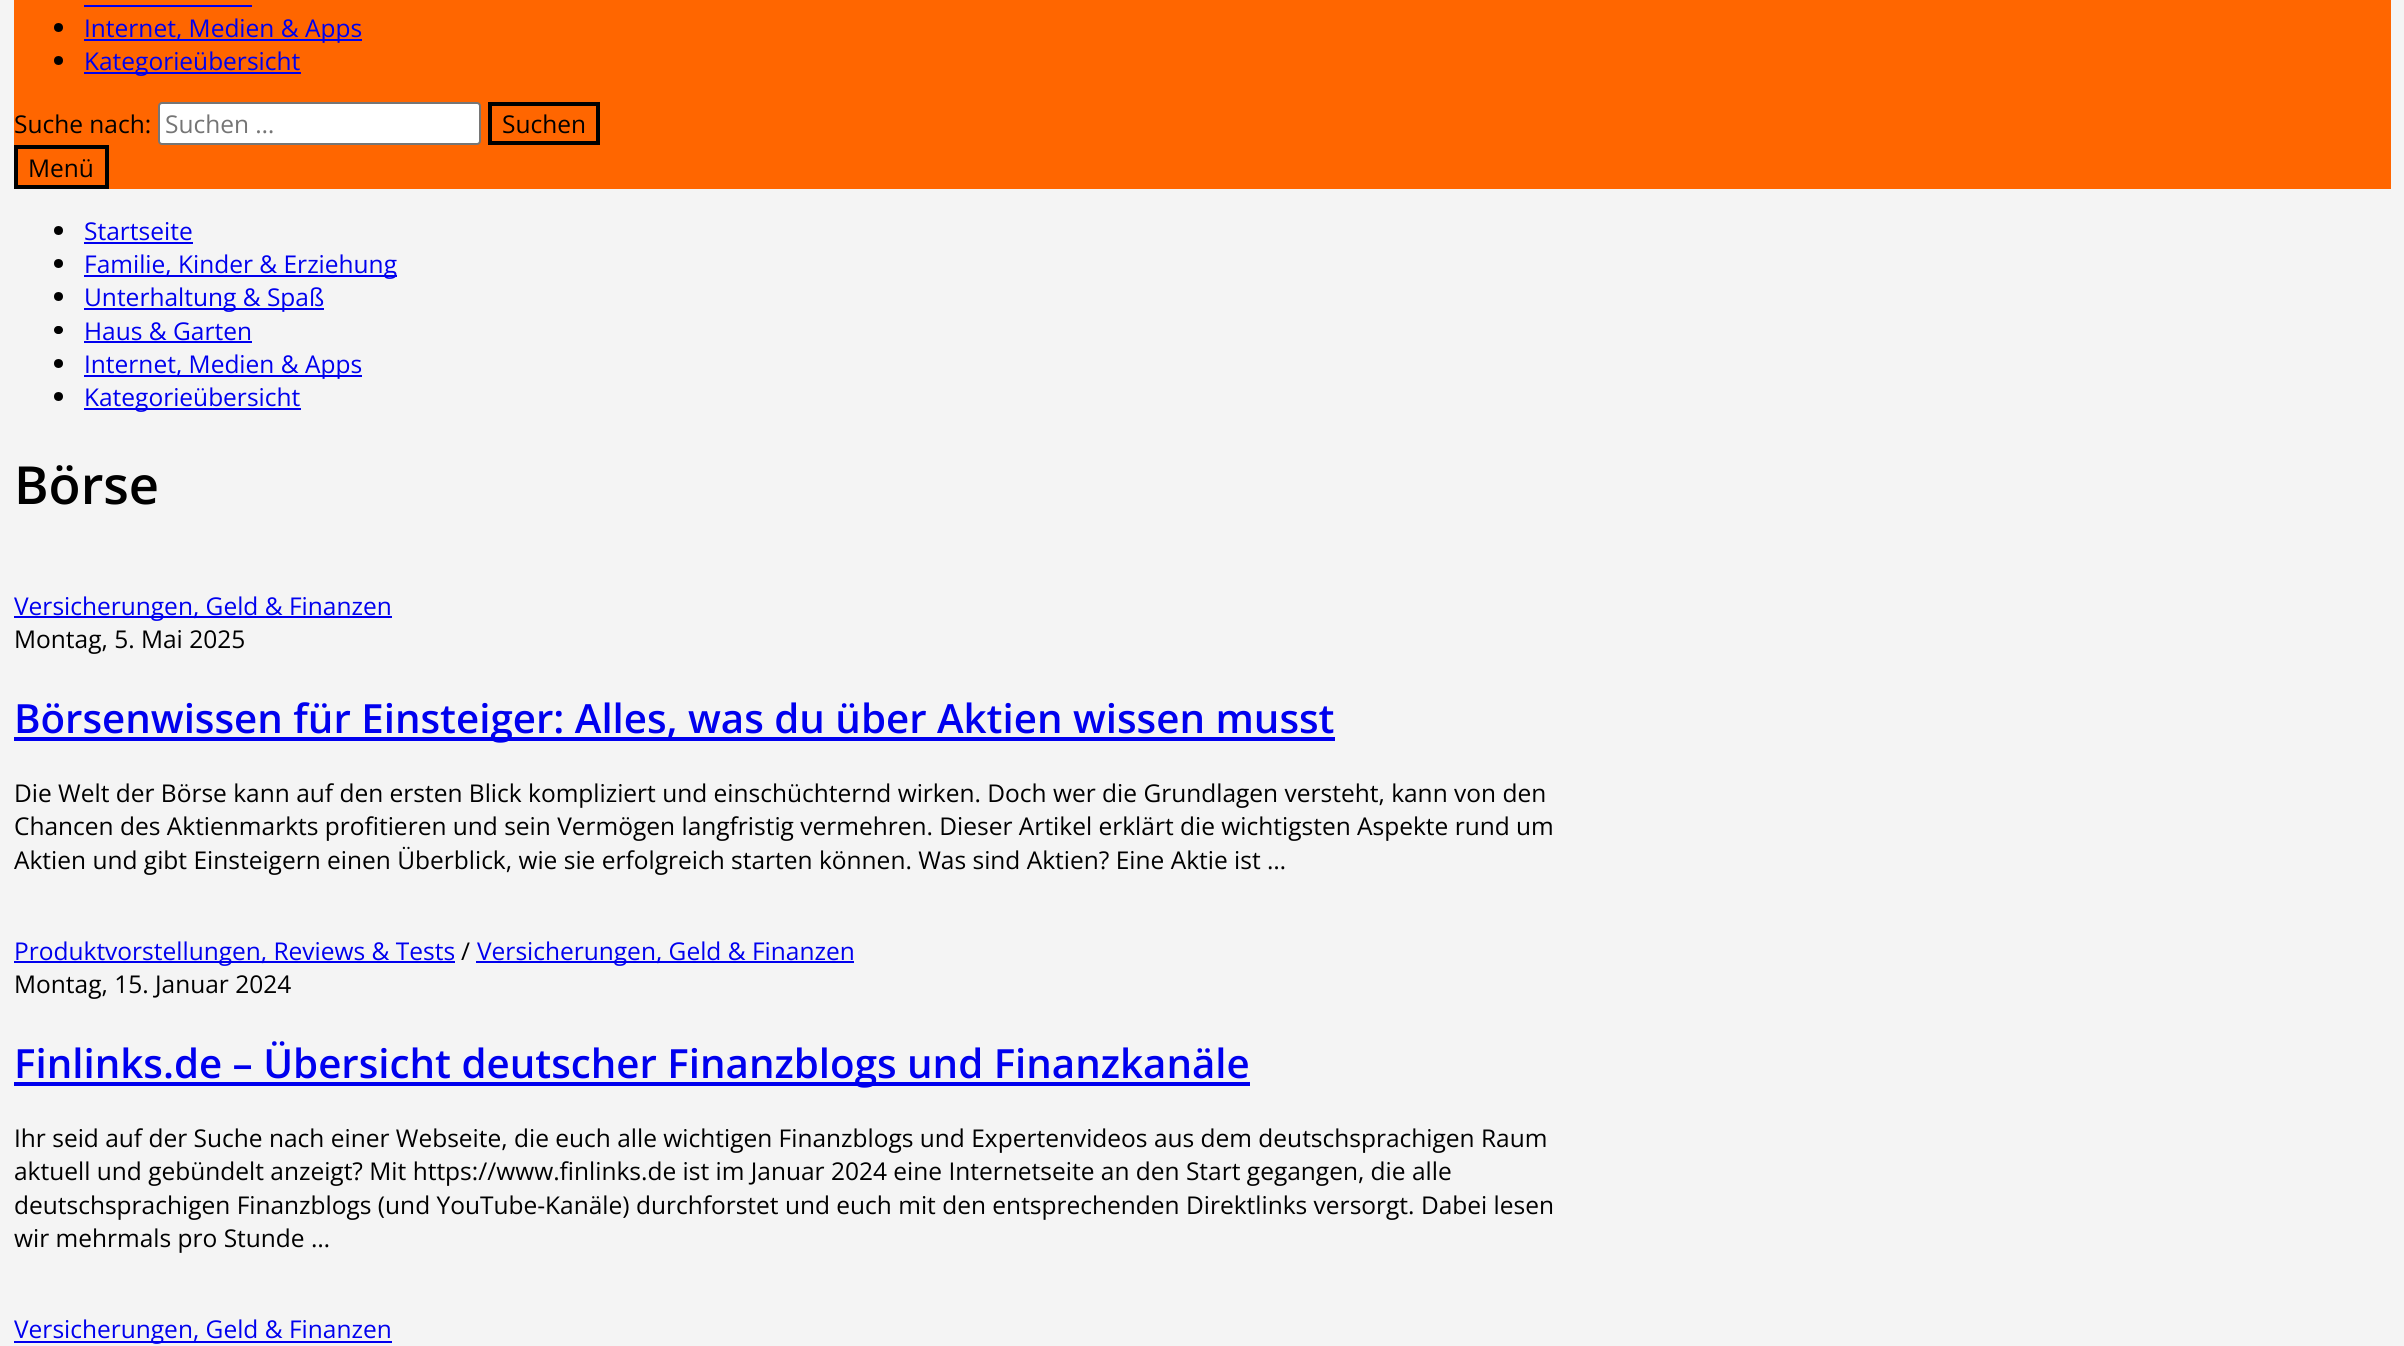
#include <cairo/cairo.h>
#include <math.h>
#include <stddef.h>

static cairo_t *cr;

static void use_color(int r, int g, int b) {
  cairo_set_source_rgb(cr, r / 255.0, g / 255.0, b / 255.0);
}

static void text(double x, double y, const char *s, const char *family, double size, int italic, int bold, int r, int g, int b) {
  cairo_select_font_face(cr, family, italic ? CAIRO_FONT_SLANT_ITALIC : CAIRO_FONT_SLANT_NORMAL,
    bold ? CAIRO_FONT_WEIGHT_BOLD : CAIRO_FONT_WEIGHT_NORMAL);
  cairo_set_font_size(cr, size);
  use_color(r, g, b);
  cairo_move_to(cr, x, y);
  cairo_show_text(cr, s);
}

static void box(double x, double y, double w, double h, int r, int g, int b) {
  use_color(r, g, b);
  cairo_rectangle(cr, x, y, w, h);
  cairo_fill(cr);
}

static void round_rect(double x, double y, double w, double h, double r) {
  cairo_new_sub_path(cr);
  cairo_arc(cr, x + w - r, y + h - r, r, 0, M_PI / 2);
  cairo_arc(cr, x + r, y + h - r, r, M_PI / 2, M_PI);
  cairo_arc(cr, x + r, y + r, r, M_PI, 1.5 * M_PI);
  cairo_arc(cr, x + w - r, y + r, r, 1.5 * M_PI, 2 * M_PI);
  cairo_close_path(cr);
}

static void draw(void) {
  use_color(244, 244, 244);
  cairo_paint(cr);
  box(14, 0, 2377, 189, 255, 102, 0);
  box(84, 5, 168, 2, 0, 0, 238);
  use_color(0, 0, 0);
  cairo_arc(cr, 58.5, 27.5, 4.5, 0, 2 * M_PI);
  cairo_fill(cr);
  box(84, 39, 278, 2, 0, 0, 238);
  use_color(0, 0, 0);
  cairo_arc(cr, 58.5, 60.5, 4.5, 0, 2 * M_PI);
  cairo_fill(cr);
  box(84, 72, 217, 2, 0, 0, 238);
  use_color(255, 255, 255);
  round_rect(159, 103, 321, 41, 3);
  cairo_fill_preserve(cr);
  use_color(118, 118, 118);
  cairo_stroke(cr);
  cairo_rectangle(cr, 490, 104, 108, 39);
  use_color(0, 0, 0);
  cairo_set_line_width(cr, 4);
  cairo_stroke(cr);
  cairo_rectangle(cr, 16, 147, 91, 40);
  cairo_stroke(cr);
  cairo_arc(cr, 58.5, 230.5, 4.5, 0, 2 * M_PI);
  cairo_fill(cr);
  box(84, 242, 109, 2, 0, 0, 238);
  use_color(0, 0, 0);
  cairo_arc(cr, 58.5, 263.5, 4.5, 0, 2 * M_PI);
  cairo_fill(cr);
  box(84, 275, 313, 2, 0, 0, 238);
  use_color(0, 0, 0);
  cairo_arc(cr, 58.5, 296.5, 4.5, 0, 2 * M_PI);
  cairo_fill(cr);
  box(84, 308, 240, 2, 0, 0, 238);
  use_color(0, 0, 0);
  round_rect(54, 326, 9, 8, 4);
  cairo_fill(cr);
  box(84, 341, 168, 2, 0, 0, 238);
  use_color(0, 0, 0);
  cairo_arc(cr, 58.5, 363.5, 4.5, 0, 2 * M_PI);
  cairo_fill(cr);
  box(84, 375, 278, 2, 0, 0, 238);
  use_color(0, 0, 0);
  cairo_arc(cr, 58.5, 396.5, 4.5, 0, 2 * M_PI);
  cairo_fill(cr);
  box(84, 408, 217, 2, 0, 0, 238);
  box(14, 616, 378, 2, 0, 0, 238);
  box(14, 737, 1321, 4, 0, 0, 238);
  box(14, 961, 441, 2, 0, 0, 238);
  box(476, 961, 378, 2, 0, 0, 238);
  box(14, 1082, 1236, 4, 0, 0, 238);
  box(14, 1341, 378, 2, 0, 0, 238);
  text(84, 37, "Internet, Medien & Apps", "Open Sans", 24.5, 0, 0, 0, 0, 238);
  text(84, 70, "Kategorieübersicht", "Open Sans", 24.5, 0, 0, 0, 0, 238);
  text(14, 133, "Suche nach:", "Open Sans", 24.5, 0, 0, 0, 0, 0);
  text(165, 133, "Suchen …", "Open Sans", 24.5, 0, 0, 117, 117, 117);
  text(502, 133, "Suchen", "Open Sans", 24.5, 0, 0, 0, 0, 0);
  text(28, 177, "Menü", "Open Sans", 24.5, 0, 0, 0, 0, 0);
  text(84, 240, "Startseite", "Open Sans", 24.5, 0, 0, 0, 0, 238);
  text(84, 273, "Familie, Kinder & Erziehung", "Open Sans", 24.5, 0, 0, 0, 0, 238);
  text(84, 306, "Unterhaltung & Spaß", "Open Sans", 24.5, 0, 0, 0, 0, 238);
  text(84, 340, "Haus & Garten", "Open Sans", 24.5, 0, 0, 0, 0, 238);
  text(84, 373, "Internet, Medien & Apps", "Open Sans", 24.5, 0, 0, 0, 0, 238);
  text(84, 406, "Kategorieübersicht", "Open Sans", 24.5, 0, 0, 0, 0, 238);
  text(14, 504, "Börse", "Open Sans SemiBold", 52.5, 0, 0, 0, 0, 0);
  text(14, 615, "Versicherungen, Geld & Finanzen", "Open Sans", 24.5, 0, 0, 0, 0, 238);
  text(14, 648, "Montag, 5. Mai 2025", "Open Sans", 24.5, 0, 0, 0, 0, 0);
  text(14, 733, "Börsenwissen für Einsteiger: Alles, was du über Aktien wissen musst", "Open Sans SemiBold", 40.25, 0, 0, 0, 0, 238);
  text(14, 802, "Die Welt der Börse kann auf den ersten Blick kompliziert und einschüchternd wirken. Doch wer die Grundlagen versteht, kann von den", "Open Sans", 24.5, 0, 0, 0, 0, 0);
  text(14, 835, "Chancen des Aktienmarkts profitieren und sein Vermögen langfristig vermehren. Dieser Artikel erklärt die wichtigsten Aspekte rund um", "Open Sans", 24.5, 0, 0, 0, 0, 0);
  text(14, 869, "Aktien und gibt Einsteigern einen Überblick, wie sie erfolgreich starten können. Was sind Aktien? Eine Aktie ist …", "Open Sans", 24.5, 0, 0, 0, 0, 0);
  text(14, 960, "Produktvorstellungen, Reviews & Tests", "Open Sans", 24.5, 0, 0, 0, 0, 238);
  text(461, 960, "/", "Open Sans", 24.5, 0, 0, 0, 0, 0);
  text(477, 960, "Versicherungen, Geld & Finanzen", "Open Sans", 24.5, 0, 0, 0, 0, 238);
  text(14, 993, "Montag, 15. Januar 2024", "Open Sans", 24.5, 0, 0, 0, 0, 0);
  text(14, 1078, "Finlinks.de – Übersicht deutscher Finanzblogs und Finanzkanäle", "Open Sans SemiBold", 40.25, 0, 0, 0, 0, 238);
  text(14, 1147, "Ihr seid auf der Suche nach einer Webseite, die euch alle wichtigen Finanzblogs und Expertenvideos aus dem deutschsprachigen Raum", "Open Sans", 24.5, 0, 0, 0, 0, 0);
  text(14, 1180, "aktuell und gebündelt anzeigt? Mit https://www.finlinks.de ist im Januar 2024 eine Internetseite an den Start gegangen, die alle", "Open Sans", 24.5, 0, 0, 0, 0, 0);
  text(14, 1214, "deutschsprachigen Finanzblogs (und YouTube-Kanäle) durchforstet und euch mit den entsprechenden Direktlinks versorgt. Dabei lesen", "Open Sans", 24.5, 0, 0, 0, 0, 0);
  text(14, 1247, "wir mehrmals pro Stunde …", "Open Sans", 24.5, 0, 0, 0, 0, 0);
  text(14, 1338, "Versicherungen, Geld & Finanzen", "Open Sans", 24.5, 0, 0, 0, 0, 238);
}

int main(void) {
  cairo_surface_t *surface = cairo_image_surface_create(CAIRO_FORMAT_RGB24, 2404, 1346);
  cr = cairo_create(surface);
  cairo_font_options_t *options = cairo_font_options_create();
  cairo_font_options_set_hint_metrics(options, CAIRO_HINT_METRICS_OFF);
  cairo_font_options_set_hint_style(options, CAIRO_HINT_STYLE_NONE);
  cairo_set_font_options(cr, options);
  cairo_set_miter_limit(cr, 4);
  draw();
  cairo_surface_write_to_png(surface, "out.png");
  cairo_font_options_destroy(options);
  cairo_destroy(cr);
  cairo_surface_destroy(surface);
  return 0;
}
